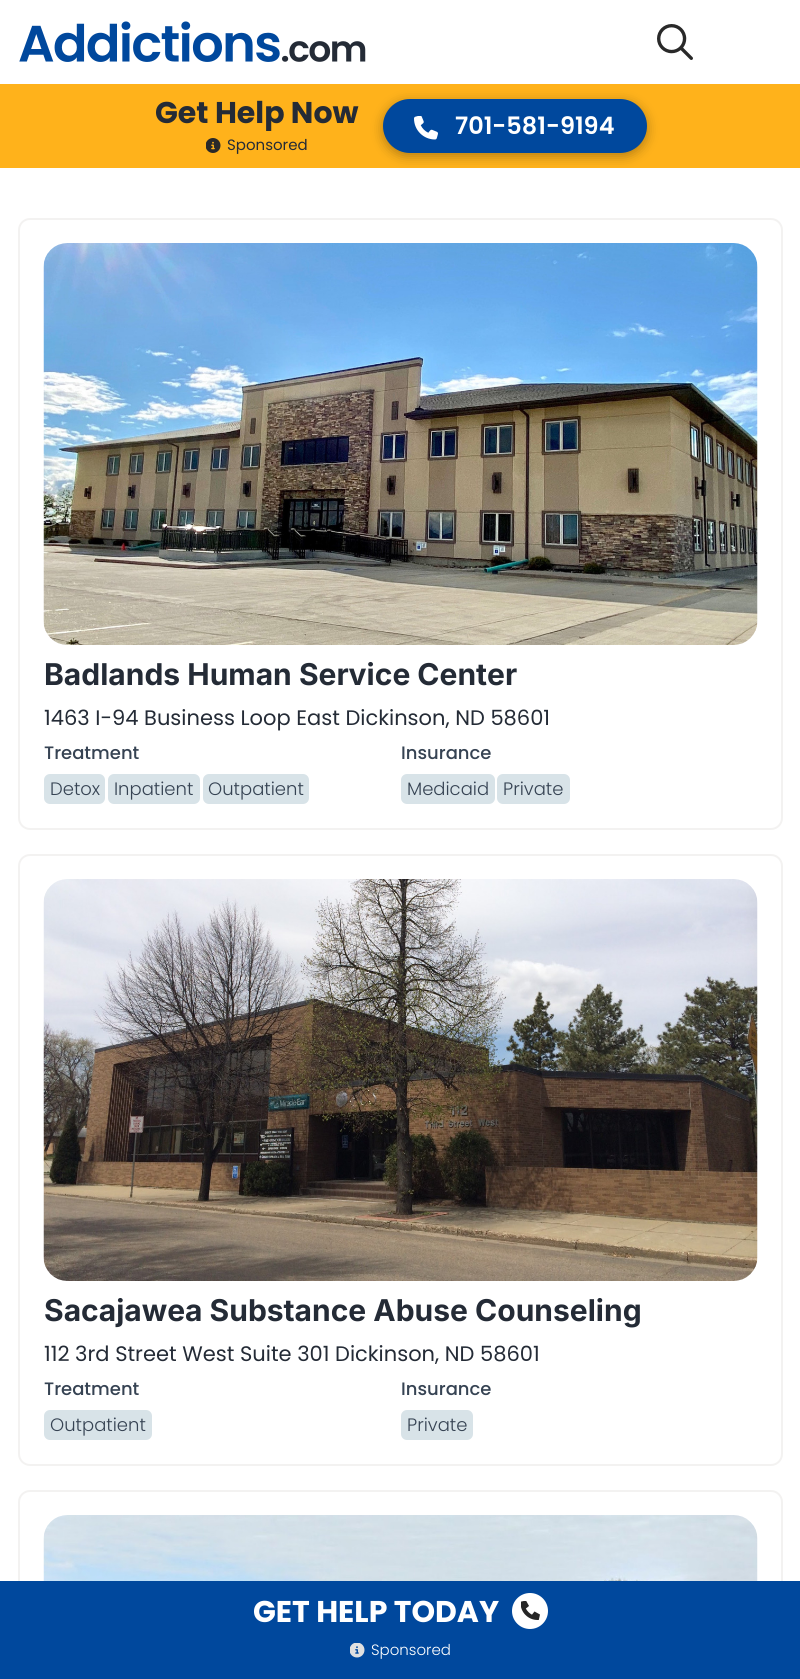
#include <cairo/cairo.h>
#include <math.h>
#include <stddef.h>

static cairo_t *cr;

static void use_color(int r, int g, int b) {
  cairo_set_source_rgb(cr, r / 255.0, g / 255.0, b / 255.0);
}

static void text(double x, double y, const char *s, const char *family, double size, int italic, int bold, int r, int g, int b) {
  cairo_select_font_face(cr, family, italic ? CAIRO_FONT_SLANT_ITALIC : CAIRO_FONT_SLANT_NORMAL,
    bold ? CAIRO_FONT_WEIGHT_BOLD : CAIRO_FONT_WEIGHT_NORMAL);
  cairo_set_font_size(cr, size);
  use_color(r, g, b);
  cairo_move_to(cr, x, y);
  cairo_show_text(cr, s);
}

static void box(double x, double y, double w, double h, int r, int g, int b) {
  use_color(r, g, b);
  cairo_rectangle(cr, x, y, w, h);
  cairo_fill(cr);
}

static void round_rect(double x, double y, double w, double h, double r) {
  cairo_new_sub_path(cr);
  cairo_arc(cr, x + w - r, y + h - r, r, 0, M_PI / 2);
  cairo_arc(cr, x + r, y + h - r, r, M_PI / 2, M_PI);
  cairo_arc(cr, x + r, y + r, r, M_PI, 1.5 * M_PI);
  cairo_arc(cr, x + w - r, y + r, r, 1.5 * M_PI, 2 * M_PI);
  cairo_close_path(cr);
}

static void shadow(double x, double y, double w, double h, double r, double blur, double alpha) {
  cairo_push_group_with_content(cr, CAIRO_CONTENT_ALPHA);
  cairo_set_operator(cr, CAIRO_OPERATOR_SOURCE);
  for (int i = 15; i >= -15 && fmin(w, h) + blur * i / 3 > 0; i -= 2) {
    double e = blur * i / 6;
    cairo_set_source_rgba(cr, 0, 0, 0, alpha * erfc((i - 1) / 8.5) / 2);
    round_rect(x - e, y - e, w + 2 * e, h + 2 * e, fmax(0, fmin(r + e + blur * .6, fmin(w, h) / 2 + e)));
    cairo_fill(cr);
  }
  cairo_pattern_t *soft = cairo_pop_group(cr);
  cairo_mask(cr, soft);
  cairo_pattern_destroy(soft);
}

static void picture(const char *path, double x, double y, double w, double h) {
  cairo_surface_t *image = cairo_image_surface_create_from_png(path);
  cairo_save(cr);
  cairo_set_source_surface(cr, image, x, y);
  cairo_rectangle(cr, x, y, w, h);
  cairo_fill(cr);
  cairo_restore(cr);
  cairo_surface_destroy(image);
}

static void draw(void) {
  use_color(255, 255, 255);
  cairo_paint(cr);
  picture("img_01.png", 19, 21, 347, 41);
  picture("img_02.png", 657, 24, 36, 36);
  box(0, 84, 800, 84, 255, 178, 27);
  use_color(0, 0, 0);
  shadow(383, 102, 264, 54, 27, 6, 0.3);
  use_color(0, 72, 157);
  round_rect(383, 99, 264, 54, 27);
  cairo_fill(cr);
  picture("img_03.png", 414, 116, 24, 24);
  picture("img_04.png", 206, 138, 15, 15);
  round_rect(19, 219, 763, 610, 11);
  use_color(243, 242, 241);
  cairo_stroke(cr);
  picture("img_05.png", 43, 243, 715, 402);
  use_color(216, 227, 232);
  round_rect(44, 774, 61, 30, 6);
  cairo_fill(cr);
  round_rect(108, 774, 92, 30, 6);
  cairo_fill(cr);
  round_rect(203, 774, 106, 30, 6);
  cairo_fill(cr);
  round_rect(401, 774, 94, 30, 6);
  cairo_fill(cr);
  round_rect(497, 774, 73, 30, 6);
  cairo_fill(cr);
  round_rect(19, 855, 763, 610, 11);
  use_color(243, 242, 241);
  cairo_stroke(cr);
  picture("img_06.png", 43, 879, 715, 402);
  use_color(216, 227, 232);
  round_rect(44, 1410, 108, 30, 6);
  cairo_fill(cr);
  round_rect(401, 1410, 72, 30, 6);
  cairo_fill(cr);
  round_rect(19, 1491, 763, 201, 11);
  use_color(243, 242, 241);
  cairo_stroke(cr);
  picture("img_07.png", 43, 1515, 715, 66);
  box(0, 1581, 800, 98, 0, 72, 157);
  use_color(255, 255, 255);
  cairo_arc(cr, 530, 1611, 18, 0, 2 * M_PI);
  cairo_fill(cr);
  picture("img_08.png", 521, 1601, 19, 19);
  picture("img_09.png", 350, 1643, 15, 15);
  text(155, 123, "Get Help Now", "Poppins", 30, 0, 1, 36, 43, 54);
  text(455, 134, "701-581-9194", "Poppins SemiBold", 24, 0, 0, 255, 255, 255);
  text(227, 150, "Sponsored", "Poppins", 15, 0, 0, 36, 43, 54);
  text(44, 685, "Badlands Human Service Center", "Inter", 30, 0, 1, 36, 43, 54);
  text(44, 725, "1463 I-94 Business Loop East Dickinson, ND 58601", "Poppins", 21, 0, 0, 36, 43, 54);
  text(44, 759, "Treatment", "Poppins Medium", 18, 0, 0, 54, 67, 83);
  text(50, 795, "Detox", "Poppins Light", 18, 0, 0, 54, 67, 83);
  text(114, 795, "Inpatient", "Poppins Light", 18, 0, 0, 54, 67, 83);
  text(208, 795, "Outpatient", "Poppins Light", 18, 0, 0, 54, 67, 83);
  text(401, 759, "Insurance", "Poppins Medium", 18, 0, 0, 54, 67, 83);
  text(407, 795, "Medicaid", "Poppins Light", 18, 0, 0, 54, 67, 83);
  text(503, 795, "Private", "Poppins Light", 18, 0, 0, 54, 67, 83);
  text(44, 1321, "Sacajawea Substance Abuse Counseling", "Inter", 30, 0, 1, 36, 43, 54);
  text(44, 1361, "112 3rd Street West Suite 301 Dickinson, ND 58601", "Poppins", 21, 0, 0, 36, 43, 54);
  text(44, 1395, "Treatment", "Poppins Medium", 18, 0, 0, 54, 67, 83);
  text(50, 1431, "Outpatient", "Poppins Light", 18, 0, 0, 54, 67, 83);
  text(401, 1395, "Insurance", "Poppins Medium", 18, 0, 0, 54, 67, 83);
  text(407, 1431, "Private", "Poppins Light", 18, 0, 0, 54, 67, 83);
  text(253, 1622, "GET HELP TODAY", "Poppins", 30, 0, 1, 255, 255, 255);
  text(371, 1655, "Sponsored", "Poppins Light", 15, 0, 0, 255, 255, 255);
}

int main(void) {
  cairo_surface_t *surface = cairo_image_surface_create(CAIRO_FORMAT_RGB24, 800, 1679);
  cr = cairo_create(surface);
  cairo_font_options_t *options = cairo_font_options_create();
  cairo_font_options_set_hint_metrics(options, CAIRO_HINT_METRICS_OFF);
  cairo_font_options_set_hint_style(options, CAIRO_HINT_STYLE_NONE);
  cairo_set_font_options(cr, options);
  cairo_set_miter_limit(cr, 4);
  draw();
  cairo_surface_write_to_png(surface, "out.png");
  cairo_font_options_destroy(options);
  cairo_destroy(cr);
  cairo_surface_destroy(surface);
  return 0;
}
